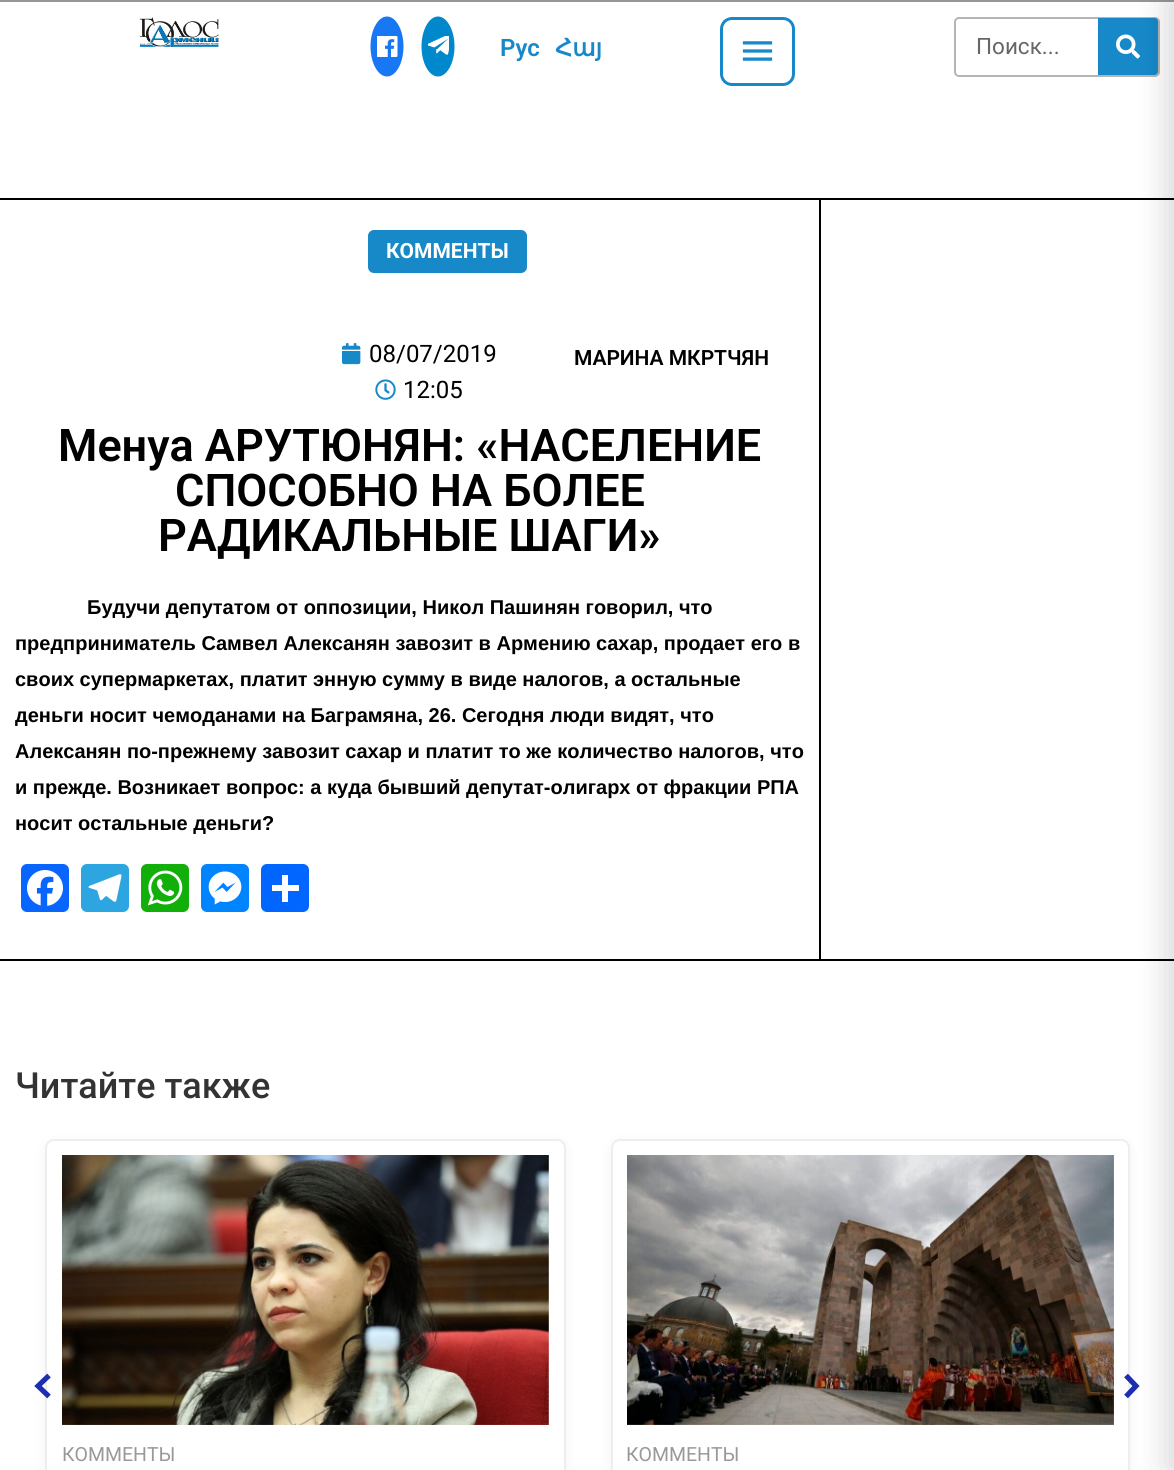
#include <cairo/cairo.h>
#include <math.h>
#include <stddef.h>

static cairo_t *cr;

static void use_color(int r, int g, int b) {
  cairo_set_source_rgb(cr, r / 255.0, g / 255.0, b / 255.0);
}

static void text(double x, double y, const char *s, const char *family, double size, int italic, int bold, int r, int g, int b) {
  cairo_select_font_face(cr, family, italic ? CAIRO_FONT_SLANT_ITALIC : CAIRO_FONT_SLANT_NORMAL,
    bold ? CAIRO_FONT_WEIGHT_BOLD : CAIRO_FONT_WEIGHT_NORMAL);
  cairo_set_font_size(cr, size);
  use_color(r, g, b);
  cairo_move_to(cr, x, y);
  cairo_show_text(cr, s);
}

static void box(double x, double y, double w, double h, int r, int g, int b) {
  use_color(r, g, b);
  cairo_rectangle(cr, x, y, w, h);
  cairo_fill(cr);
}

static void round_rect(double x, double y, double w, double h, double r) {
  cairo_new_sub_path(cr);
  cairo_arc(cr, x + w - r, y + h - r, r, 0, M_PI / 2);
  cairo_arc(cr, x + r, y + h - r, r, M_PI / 2, M_PI);
  cairo_arc(cr, x + r, y + r, r, M_PI, 1.5 * M_PI);
  cairo_arc(cr, x + w - r, y + r, r, 1.5 * M_PI, 2 * M_PI);
  cairo_close_path(cr);
}

static void shadow(double x, double y, double w, double h, double r, double blur, double alpha) {
  cairo_push_group_with_content(cr, CAIRO_CONTENT_ALPHA);
  cairo_set_operator(cr, CAIRO_OPERATOR_SOURCE);
  for (int i = 15; i >= -15 && fmin(w, h) + blur * i / 3 > 0; i -= 2) {
    double e = blur * i / 6;
    cairo_set_source_rgba(cr, 0, 0, 0, alpha * erfc((i - 1) / 8.5) / 2);
    round_rect(x - e, y - e, w + 2 * e, h + 2 * e, fmax(0, fmin(r + e + blur * .6, fmin(w, h) / 2 + e)));
    cairo_fill(cr);
  }
  cairo_pattern_t *soft = cairo_pop_group(cr);
  cairo_mask(cr, soft);
  cairo_pattern_destroy(soft);
}

static void picture(const char *path, double x, double y, double w, double h) {
  cairo_surface_t *image = cairo_image_surface_create_from_png(path);
  cairo_save(cr);
  cairo_set_source_surface(cr, image, x, y);
  cairo_rectangle(cr, x, y, w, h);
  cairo_fill(cr);
  cairo_restore(cr);
  cairo_surface_destroy(image);
}

static void draw(void) {
  use_color(255, 255, 255);
  cairo_paint(cr);
  box(0, 0, 1174, 2, 150, 150, 150);
  picture("img_01.png", 139, 17, 80, 30);
  use_color(24, 119, 242);
  cairo_new_path(cr);
  cairo_move_to(cr, 387, 16.5);
  cairo_curve_to(cr, 396, 16.5, 403.5, 30, 403.5, 46.5);
  cairo_curve_to(cr, 403.5, 63, 396, 76.5, 387, 76.5);
  cairo_curve_to(cr, 378, 76.5, 370.5, 63, 370.5, 46.5);
  cairo_curve_to(cr, 370.5, 30, 378, 16.5, 387, 16.5);
  cairo_close_path(cr);
  cairo_fill(cr);
  picture("img_02.png", 377, 36, 21, 21);
  use_color(0, 136, 204);
  cairo_new_path(cr);
  cairo_move_to(cr, 438, 16.5);
  cairo_curve_to(cr, 447, 16.5, 454.5, 30, 454.5, 46.5);
  cairo_curve_to(cr, 454.5, 63, 447, 76.5, 438, 76.5);
  cairo_curve_to(cr, 429, 76.5, 421.5, 63, 421.5, 46.5);
  cairo_curve_to(cr, 421.5, 30, 429, 16.5, 438, 16.5);
  cairo_close_path(cr);
  cairo_fill(cr);
  picture("img_03.png", 428, 36, 21, 19);
  round_rect(721.5, 18.5, 72, 66, 10.5);
  use_color(23, 136, 200);
  cairo_set_line_width(cr, 3);
  cairo_stroke(cr);
  picture("img_04.png", 742, 41, 31, 20);
  round_rect(955, 18, 204, 58, 4);
  use_color(181, 181, 181);
  cairo_set_line_width(cr, 2);
  cairo_stroke(cr);
  use_color(23, 136, 200);
  cairo_new_path(cr);
  cairo_move_to(cr, 1098, 18);
  cairo_line_to(cr, 1155, 18);
  cairo_curve_to(cr, 1156.5, 18, 1158, 19.5, 1158, 21);
  cairo_line_to(cr, 1158, 72);
  cairo_curve_to(cr, 1158, 73.5, 1156.5, 75, 1155, 75);
  cairo_line_to(cr, 1098, 75);
  cairo_close_path(cr);
  cairo_fill(cr);
  picture("img_05.png", 1116, 34, 24, 25);
  box(0, 198, 1174, 2, 0, 0, 0);
  box(0, 959, 1174, 2, 0, 0, 0);
  use_color(0, 0, 0);
  shadow(611, 1142, 519, 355, 9, 6, 0.05);
  use_color(255, 255, 255);
  round_rect(612, 1140, 517, 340, 8);
  cairo_fill_preserve(cr);
  use_color(238, 238, 238);
  cairo_stroke(cr);
  cairo_new_path(cr);
  cairo_move_to(cr, 1126, 1375.5);
  cairo_line_to(cr, 1136, 1386);
  cairo_line_to(cr, 1126, 1396.5);
  use_color(27, 46, 176);
  cairo_set_line_width(cr, 5.2);
  cairo_stroke(cr);
  use_color(0, 0, 0);
  shadow(1166, 0, 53, 1470, 0, 15, 0.15);
  box(819, 200, 2, 759, 0, 0, 0);
  use_color(23, 136, 200);
  round_rect(368, 230, 159, 43, 6);
  cairo_fill(cr);
  picture("img_06.png", 342, 343, 19, 22);
  picture("img_07.png", 375, 379, 21, 21);
  use_color(8, 102, 255);
  round_rect(21, 864, 48, 48, 6);
  cairo_fill(cr);
  picture("img_08.png", 27, 870, 36, 36);
  use_color(44, 165, 224);
  round_rect(81, 864, 48, 48, 6);
  cairo_fill(cr);
  picture("img_09.png", 88, 874, 34, 28);
  use_color(18, 175, 10);
  round_rect(141, 864, 48, 48, 6);
  cairo_fill(cr);
  picture("img_10.png", 147, 870, 36, 36);
  use_color(0, 132, 255);
  round_rect(201, 864, 48, 48, 6);
  cairo_fill(cr);
  picture("img_11.png", 208, 871, 34, 34);
  use_color(1, 102, 255);
  round_rect(261, 864, 48, 48, 6);
  cairo_fill(cr);
  box(282, 875, 6, 27, 255, 255, 255);
  box(272, 885, 27, 6, 255, 255, 255);
  use_color(0, 0, 0);
  shadow(45, 1142, 521, 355, 9, 6, 0.05);
  use_color(255, 255, 255);
  round_rect(46, 1140, 519, 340, 8);
  cairo_fill_preserve(cr);
  use_color(238, 238, 238);
  cairo_set_line_width(cr, 2);
  cairo_stroke(cr);
  cairo_new_path(cr);
  cairo_move_to(cr, 49, 1396.5);
  cairo_line_to(cr, 38, 1386);
  cairo_line_to(cr, 49, 1375.5);
  use_color(27, 46, 176);
  cairo_set_line_width(cr, 5.2);
  cairo_stroke(cr);
  picture("img_12.png", 62, 1155, 487, 270);
  picture("img_13.png", 627, 1155, 487, 270);
  text(500, 56, "Рус", "Roboto SemiBold", 24, 0, 0, 23, 136, 200);
  text(555, 56, "Հայ", "DejaVu Sans", 24, 0, 1, 23, 136, 200);
  text(976, 54, "Поиск...", "Roboto", 22.5, 0, 0, 102, 102, 102);
  text(386, 258, "КОММЕНТЫ", "Roboto", 21, 0, 1, 255, 255, 255);
  text(369, 362, "08/07/2019", "Roboto", 24, 0, 0, 0, 0, 0);
  text(403, 398, "12:05", "Roboto", 24, 0, 0, 0, 0, 0);
  text(574, 365, "МАРИНА МКРТЧЯН", "Roboto SemiBold", 21, 0, 0, 0, 0, 0);
  text(58, 461, "Менуа АРУТЮНЯН: «НАСЕЛЕНИЕ", "Roboto SemiBold", 45, 0, 0, 0, 0, 0);
  text(175, 506, "СПОСОБНО НА БОЛЕЕ", "Roboto SemiBold", 45, 0, 0, 0, 0, 0);
  text(158, 551, "РАДИКАЛЬНЫЕ ШАГИ»", "Roboto SemiBold", 45, 0, 0, 0, 0, 0);
  text(87, 614, "Будучи депутатом от оппозиции, Никол Пашинян говорил, что", "Liberation Sans", 20, 0, 1, 0, 0, 0);
  text(15, 650, "предприниматель Самвел Алексанян завозит в Армению сахар, продает его в", "Liberation Sans", 20, 0, 1, 0, 0, 0);
  text(15, 686, "своих супермаркетах, платит энную сумму в виде налогов, а остальные", "Liberation Sans", 20, 0, 1, 0, 0, 0);
  text(15, 722, "деньги носит чемоданами на Баграмяна, 26. Сегодня люди видят, что", "Liberation Sans", 20, 0, 1, 0, 0, 0);
  text(15, 758, "Алексанян по-прежнему завозит сахар и платит то же количество налогов, что", "Liberation Sans", 20, 0, 1, 0, 0, 0);
  text(15, 794, "и прежде. Возникает вопрос: а куда бывший депутат-олигарх от фракции РПА", "Liberation Sans", 20, 0, 1, 0, 0, 0);
  text(15, 830, "носит остальные деньги?", "Liberation Sans", 20, 0, 1, 0, 0, 0);
  text(15, 1098, "Читайте также", "Roboto Medium", 36, 0, 0, 51, 51, 51);
  text(62, 1461, "КОММЕНТЫ", "Roboto", 19.5, 0, 0, 153, 153, 153);
  text(626, 1461, "КОММЕНТЫ", "Roboto", 19.5, 0, 0, 153, 153, 153);
}

int main(void) {
  cairo_surface_t *surface = cairo_image_surface_create(CAIRO_FORMAT_RGB24, 1174, 1470);
  cr = cairo_create(surface);
  cairo_font_options_t *options = cairo_font_options_create();
  cairo_font_options_set_hint_metrics(options, CAIRO_HINT_METRICS_OFF);
  cairo_font_options_set_hint_style(options, CAIRO_HINT_STYLE_NONE);
  cairo_set_font_options(cr, options);
  cairo_set_miter_limit(cr, 4);
  draw();
  cairo_surface_write_to_png(surface, "out.png");
  cairo_font_options_destroy(options);
  cairo_destroy(cr);
  cairo_surface_destroy(surface);
  return 0;
}
